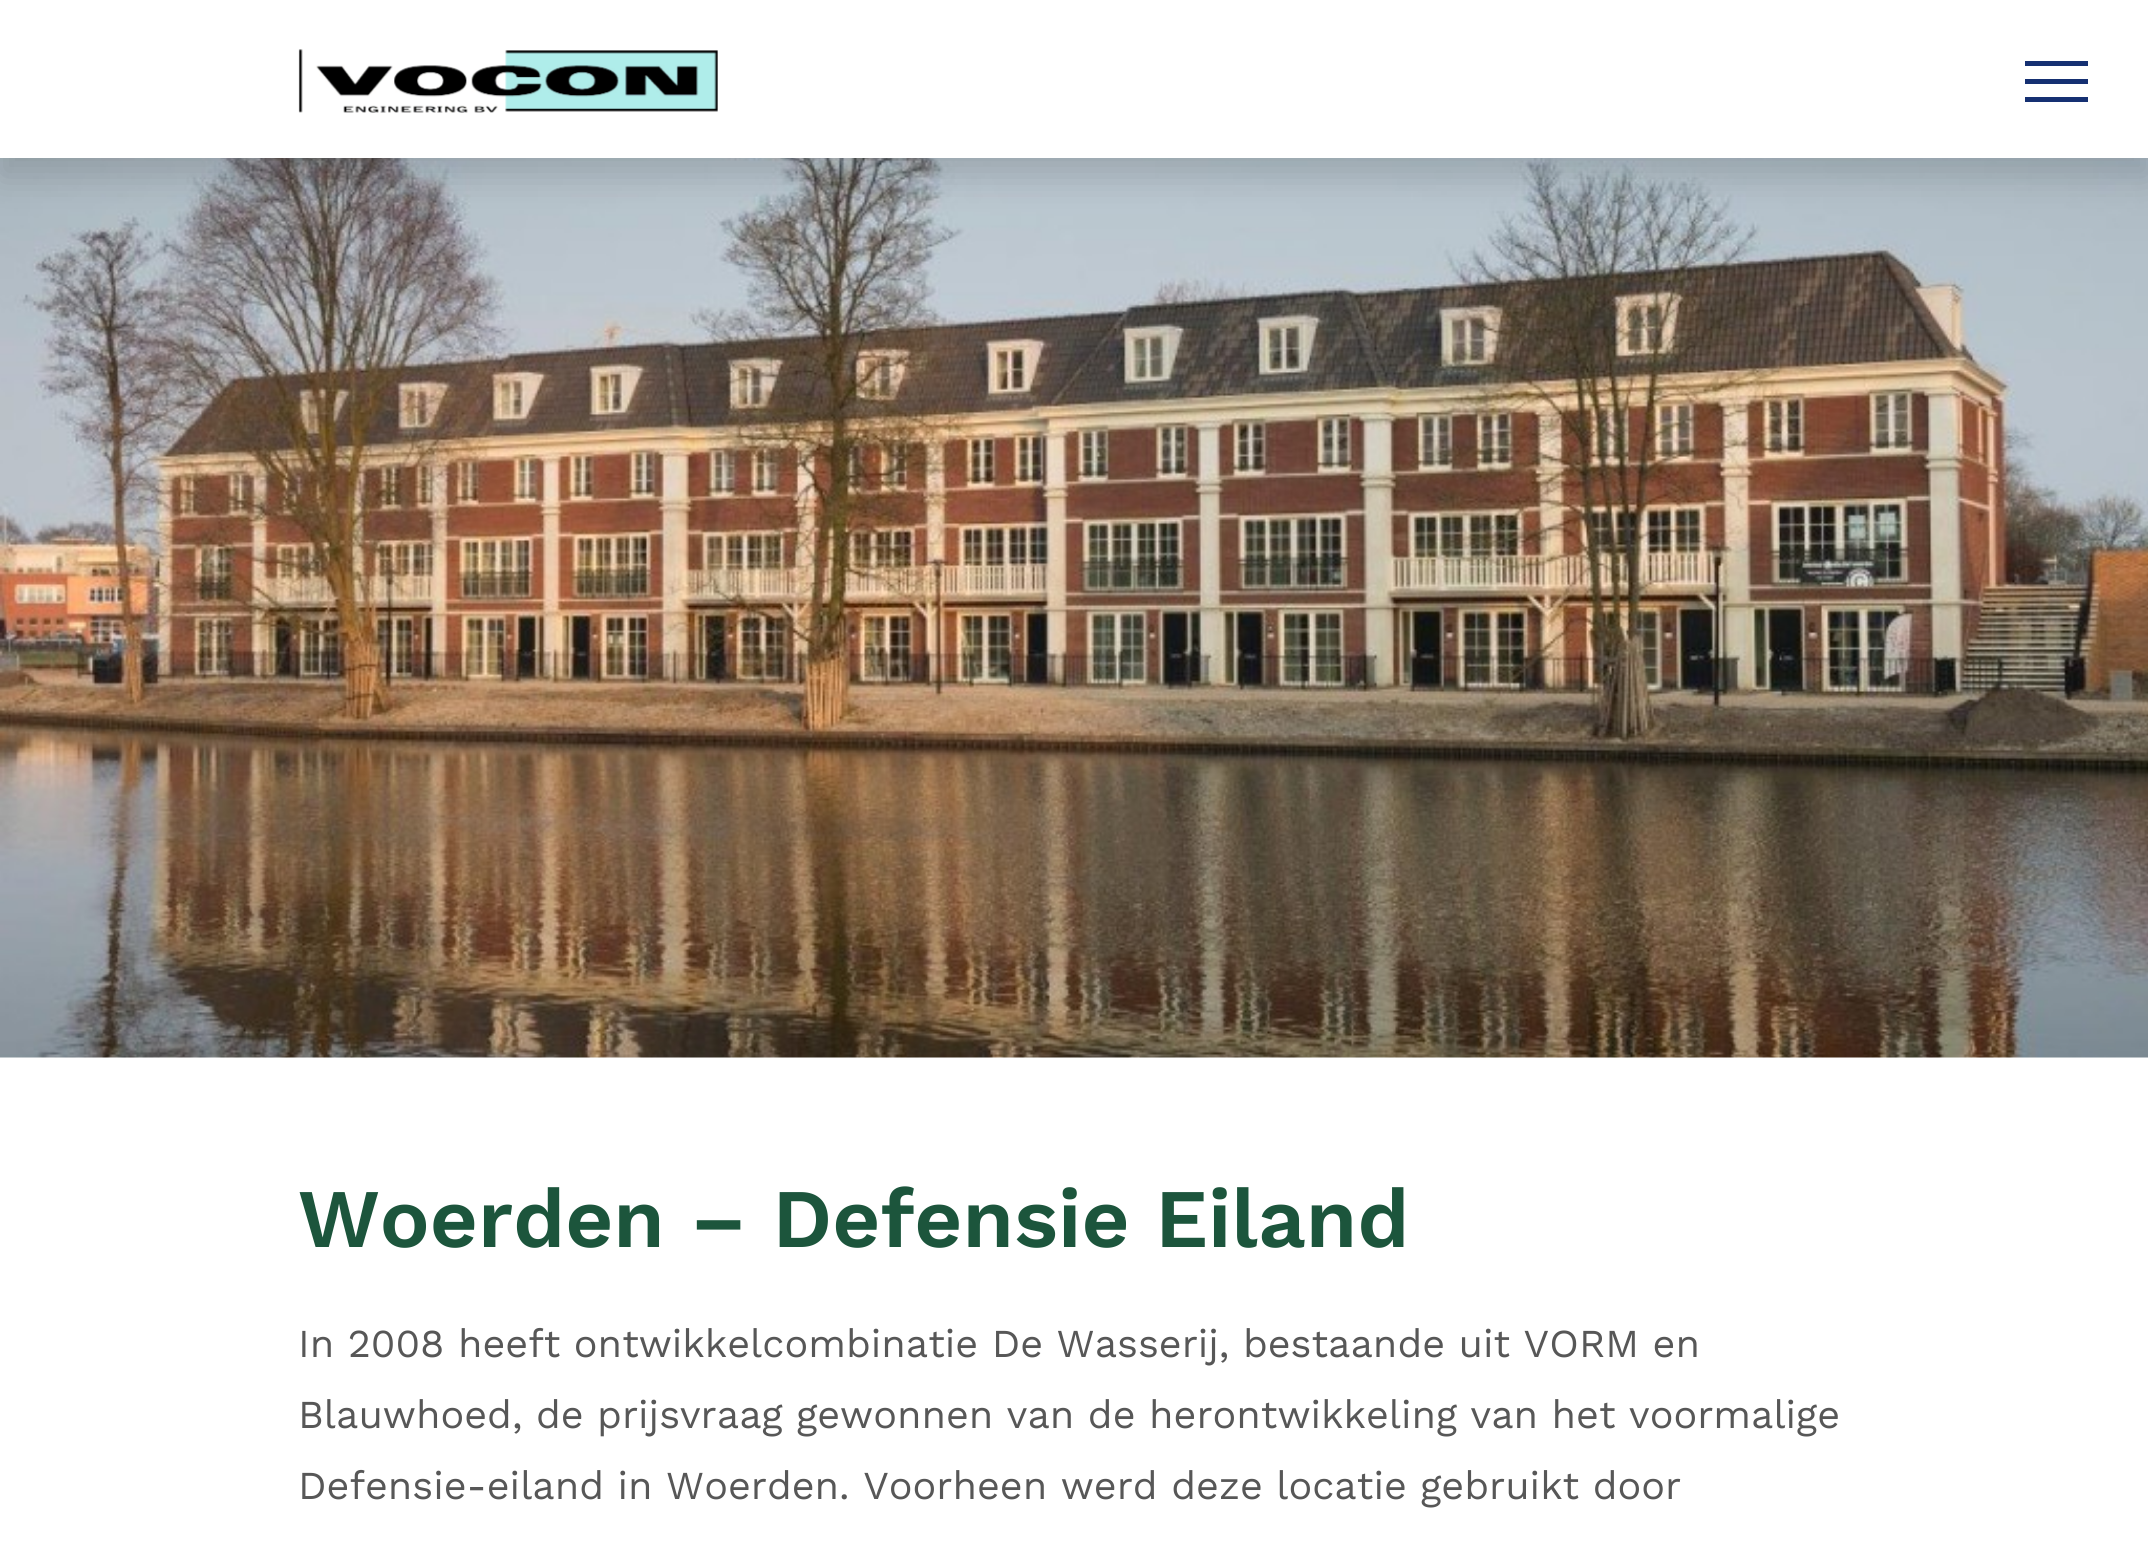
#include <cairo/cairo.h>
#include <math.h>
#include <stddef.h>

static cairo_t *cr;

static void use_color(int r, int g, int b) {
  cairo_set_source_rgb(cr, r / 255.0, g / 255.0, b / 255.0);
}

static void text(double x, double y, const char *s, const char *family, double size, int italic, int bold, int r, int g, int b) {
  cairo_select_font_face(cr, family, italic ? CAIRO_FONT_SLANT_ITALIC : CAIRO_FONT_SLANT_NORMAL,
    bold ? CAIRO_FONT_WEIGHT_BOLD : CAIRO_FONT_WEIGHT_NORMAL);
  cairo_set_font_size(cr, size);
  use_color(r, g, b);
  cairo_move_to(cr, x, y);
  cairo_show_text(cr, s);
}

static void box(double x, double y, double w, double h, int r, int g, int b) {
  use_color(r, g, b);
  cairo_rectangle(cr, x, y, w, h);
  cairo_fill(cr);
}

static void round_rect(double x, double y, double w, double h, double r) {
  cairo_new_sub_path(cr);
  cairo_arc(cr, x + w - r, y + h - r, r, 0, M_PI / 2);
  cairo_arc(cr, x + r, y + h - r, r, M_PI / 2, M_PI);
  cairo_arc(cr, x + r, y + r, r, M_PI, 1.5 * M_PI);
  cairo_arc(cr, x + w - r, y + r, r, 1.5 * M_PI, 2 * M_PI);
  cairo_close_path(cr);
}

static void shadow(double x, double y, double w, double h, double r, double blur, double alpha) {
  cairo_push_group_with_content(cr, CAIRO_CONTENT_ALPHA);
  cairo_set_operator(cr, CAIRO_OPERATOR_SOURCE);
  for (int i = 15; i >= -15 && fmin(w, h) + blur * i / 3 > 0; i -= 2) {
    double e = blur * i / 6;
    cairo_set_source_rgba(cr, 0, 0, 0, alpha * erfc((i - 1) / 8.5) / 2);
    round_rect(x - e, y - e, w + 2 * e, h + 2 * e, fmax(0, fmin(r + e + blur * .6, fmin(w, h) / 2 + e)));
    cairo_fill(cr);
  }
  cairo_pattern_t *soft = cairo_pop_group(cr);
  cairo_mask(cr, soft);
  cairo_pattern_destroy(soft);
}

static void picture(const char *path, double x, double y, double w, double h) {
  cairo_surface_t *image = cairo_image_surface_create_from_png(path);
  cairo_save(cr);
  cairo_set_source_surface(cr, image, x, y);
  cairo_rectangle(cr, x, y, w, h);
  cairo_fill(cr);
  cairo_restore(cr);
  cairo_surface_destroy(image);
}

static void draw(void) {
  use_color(255, 255, 255);
  cairo_paint(cr);
  picture("img_02.png", 0, 158, 2148, 900);
  use_color(0, 0, 0);
  shadow(0, 18, 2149, 158, 0, 18, 0.15);
  box(0, 0, 2148, 158, 255, 255, 255);
  picture("img_01.png", 298, 49, 420, 64);
  box(2025, 61, 63, 5, 21, 48, 114);
  box(2025, 79, 63, 5, 21, 48, 114);
  box(2025, 97, 63, 5, 21, 48, 114);
  text(298, 1247, "Woerden – Defensie Eiland", "Work Sans SemiBold", 83.2, 0, 0, 28, 85, 60);
  text(298, 1357, "In 2008 heeft ontwikkelcombinatie De Wasserij, bestaande uit VORM en", "Work Sans", 39.6, 0, 0, 87, 87, 87);
  text(298, 1428, "Blauwhoed, de prijsvraag gewonnen van de herontwikkeling van het voormalige", "Work Sans", 39.6, 0, 0, 87, 87, 87);
  text(298, 1499, "Defensie-eiland in Woerden. Voorheen werd deze locatie gebruikt door", "Work Sans", 39.6, 0, 0, 87, 87, 87);
}

int main(void) {
  cairo_surface_t *surface = cairo_image_surface_create(CAIRO_FORMAT_RGB24, 2148, 1561);
  cr = cairo_create(surface);
  cairo_font_options_t *options = cairo_font_options_create();
  cairo_font_options_set_hint_metrics(options, CAIRO_HINT_METRICS_OFF);
  cairo_font_options_set_hint_style(options, CAIRO_HINT_STYLE_NONE);
  cairo_set_font_options(cr, options);
  cairo_set_miter_limit(cr, 4);
  draw();
  cairo_surface_write_to_png(surface, "out.png");
  cairo_font_options_destroy(options);
  cairo_destroy(cr);
  cairo_surface_destroy(surface);
  return 0;
}
